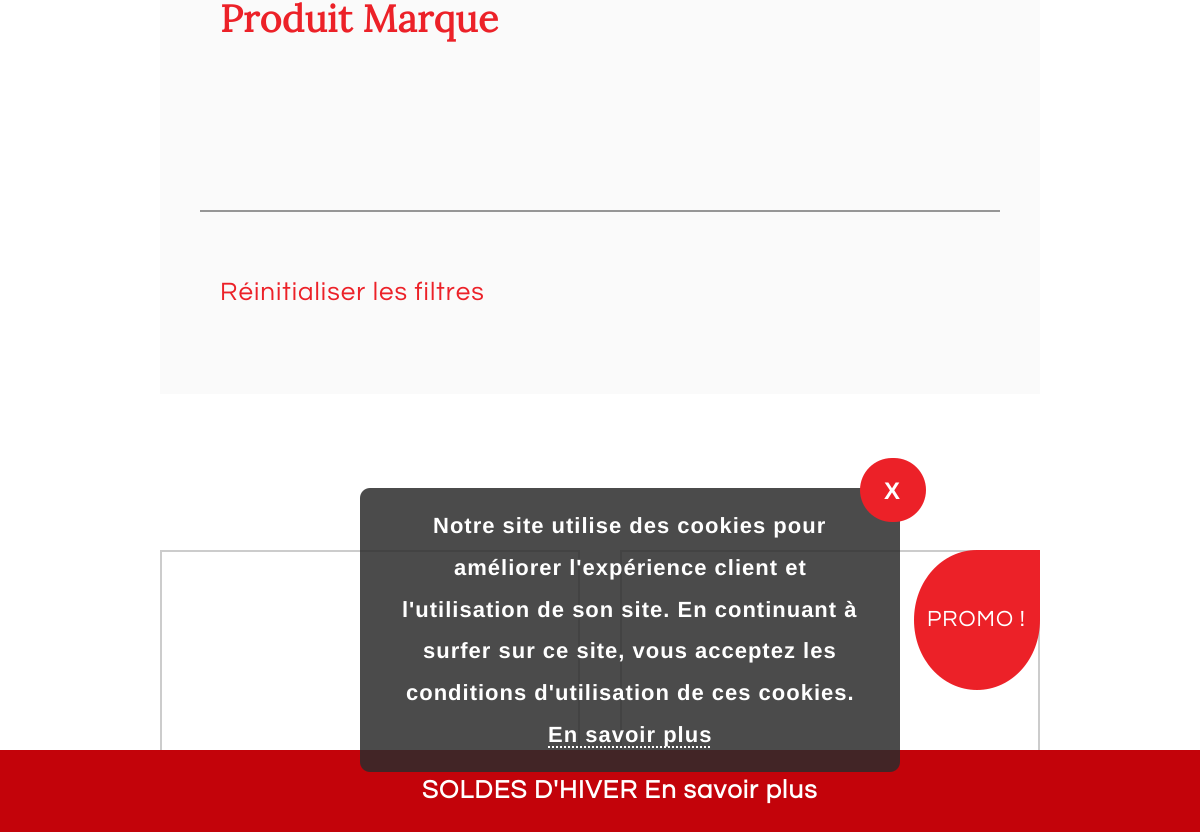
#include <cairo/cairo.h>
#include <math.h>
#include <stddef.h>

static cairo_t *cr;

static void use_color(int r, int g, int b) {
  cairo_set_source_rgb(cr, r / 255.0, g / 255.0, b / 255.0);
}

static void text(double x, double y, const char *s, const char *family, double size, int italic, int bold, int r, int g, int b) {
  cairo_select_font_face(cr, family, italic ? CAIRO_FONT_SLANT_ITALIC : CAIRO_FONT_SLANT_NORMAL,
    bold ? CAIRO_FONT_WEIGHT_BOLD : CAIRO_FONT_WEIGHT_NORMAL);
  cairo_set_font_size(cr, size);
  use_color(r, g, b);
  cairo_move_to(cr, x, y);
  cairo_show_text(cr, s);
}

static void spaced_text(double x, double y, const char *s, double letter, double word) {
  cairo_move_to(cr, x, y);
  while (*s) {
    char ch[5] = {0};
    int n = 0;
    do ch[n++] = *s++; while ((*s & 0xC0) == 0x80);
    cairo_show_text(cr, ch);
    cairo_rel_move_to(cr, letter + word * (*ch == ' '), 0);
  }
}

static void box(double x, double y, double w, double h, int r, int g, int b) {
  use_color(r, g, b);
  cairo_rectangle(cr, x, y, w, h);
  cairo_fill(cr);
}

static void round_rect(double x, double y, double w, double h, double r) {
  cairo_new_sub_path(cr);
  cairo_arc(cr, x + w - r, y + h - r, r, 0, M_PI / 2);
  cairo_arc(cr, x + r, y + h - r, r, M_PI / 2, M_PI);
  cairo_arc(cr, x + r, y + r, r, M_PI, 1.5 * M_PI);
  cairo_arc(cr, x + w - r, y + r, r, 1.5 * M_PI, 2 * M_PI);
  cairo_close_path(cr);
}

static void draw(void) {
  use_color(255, 255, 255);
  cairo_paint(cr);
  box(160, 0, 880, 394, 250, 250, 250);
  box(200, 210, 800, 2, 150, 150, 150);
  cairo_rectangle(cr, 161, 551, 418, 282);
  use_color(204, 204, 204);
  cairo_stroke(cr);
  cairo_rectangle(cr, 621, 551, 418, 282);
  cairo_stroke(cr);
  use_color(236, 33, 40);
  cairo_new_path(cr);
  cairo_move_to(cr, 977, 550);
  cairo_line_to(cr, 1040, 550);
  cairo_line_to(cr, 1040, 620);
  cairo_curve_to(cr, 1040, 659, 1012, 690, 977, 690);
  cairo_curve_to(cr, 942, 690, 914, 659, 914, 620);
  cairo_curve_to(cr, 914, 581, 942, 550, 977, 550);
  cairo_close_path(cr);
  cairo_fill(cr);
  box(0, 750, 1200, 82, 195, 3, 10);
  cairo_set_source_rgba(cr, 0.173, 0.173, 0.173, 0.85);
  round_rect(360, 488, 540, 284, 10);
  cairo_fill(cr);
  use_color(236, 33, 40);
  round_rect(860, 458, 66, 64, 32);
  cairo_fill(cr);
  cairo_new_path(cr);
  cairo_move_to(cr, 548, 747);
  cairo_line_to(cr, 712, 747);
  use_color(255, 255, 255);
  cairo_set_dash(cr, (double[]){2, 2}, 2, 0);
  cairo_stroke(cr);
  text(220, 32, "Produit Marque", "Lora", 38, 0, 1, 236, 33, 40);
  cairo_select_font_face(cr, "Questrial", CAIRO_FONT_SLANT_NORMAL, CAIRO_FONT_WEIGHT_NORMAL);
  cairo_set_font_size(cr, 26);
  spaced_text(220, 300, "Réinitialiser les filtres", 1, 0);
  cairo_set_font_size(cr, 22.75);
  use_color(255, 255, 255);
  spaced_text(927, 626, "PROMO !", 1, 0);
  cairo_select_font_face(cr, "Liberation Sans", CAIRO_FONT_SLANT_NORMAL, CAIRO_FONT_WEIGHT_BOLD);
  cairo_set_font_size(cr, 24);
  spaced_text(884, 499, "X", 2, 0);
  cairo_set_font_size(cr, 22);
  spaced_text(433, 533, "Notre site utilise des cookies pour", 1, 0);
  spaced_text(454, 575, "améliorer l'expérience client et", 1, 0);
  spaced_text(402, 617, "l'utilisation de son site. En continuant à", 1, 0);
  spaced_text(423, 658, "surfer sur ce site, vous acceptez les", 1, 0);
  spaced_text(406, 700, "conditions d'utilisation de ces cookies.", 1, 0);
  spaced_text(548, 742, "En savoir plus", 1, 0);
  cairo_select_font_face(cr, "Questrial", CAIRO_FONT_SLANT_NORMAL, CAIRO_FONT_WEIGHT_BOLD);
  cairo_set_font_size(cr, 26);
  spaced_text(422, 798, "SOLDES D'HIVER En savoir plus", 1, 0);
}

int main(void) {
  cairo_surface_t *surface = cairo_image_surface_create(CAIRO_FORMAT_RGB24, 1200, 832);
  cr = cairo_create(surface);
  cairo_font_options_t *options = cairo_font_options_create();
  cairo_font_options_set_hint_metrics(options, CAIRO_HINT_METRICS_OFF);
  cairo_font_options_set_hint_style(options, CAIRO_HINT_STYLE_NONE);
  cairo_set_font_options(cr, options);
  cairo_set_miter_limit(cr, 4);
  draw();
  cairo_surface_write_to_png(surface, "out.png");
  cairo_font_options_destroy(options);
  cairo_destroy(cr);
  cairo_surface_destroy(surface);
  return 0;
}
